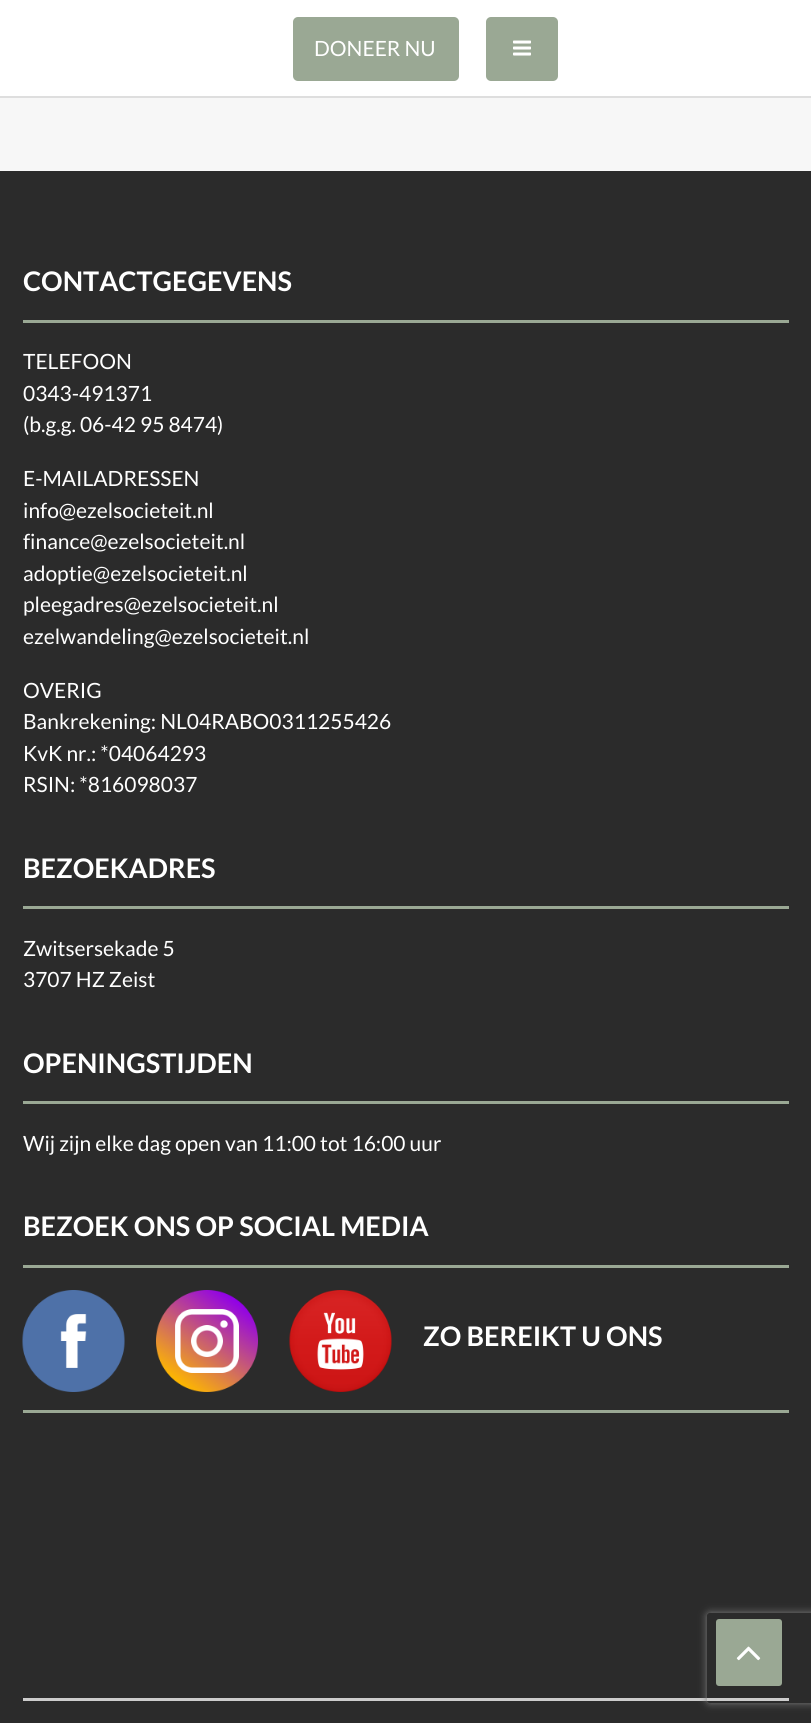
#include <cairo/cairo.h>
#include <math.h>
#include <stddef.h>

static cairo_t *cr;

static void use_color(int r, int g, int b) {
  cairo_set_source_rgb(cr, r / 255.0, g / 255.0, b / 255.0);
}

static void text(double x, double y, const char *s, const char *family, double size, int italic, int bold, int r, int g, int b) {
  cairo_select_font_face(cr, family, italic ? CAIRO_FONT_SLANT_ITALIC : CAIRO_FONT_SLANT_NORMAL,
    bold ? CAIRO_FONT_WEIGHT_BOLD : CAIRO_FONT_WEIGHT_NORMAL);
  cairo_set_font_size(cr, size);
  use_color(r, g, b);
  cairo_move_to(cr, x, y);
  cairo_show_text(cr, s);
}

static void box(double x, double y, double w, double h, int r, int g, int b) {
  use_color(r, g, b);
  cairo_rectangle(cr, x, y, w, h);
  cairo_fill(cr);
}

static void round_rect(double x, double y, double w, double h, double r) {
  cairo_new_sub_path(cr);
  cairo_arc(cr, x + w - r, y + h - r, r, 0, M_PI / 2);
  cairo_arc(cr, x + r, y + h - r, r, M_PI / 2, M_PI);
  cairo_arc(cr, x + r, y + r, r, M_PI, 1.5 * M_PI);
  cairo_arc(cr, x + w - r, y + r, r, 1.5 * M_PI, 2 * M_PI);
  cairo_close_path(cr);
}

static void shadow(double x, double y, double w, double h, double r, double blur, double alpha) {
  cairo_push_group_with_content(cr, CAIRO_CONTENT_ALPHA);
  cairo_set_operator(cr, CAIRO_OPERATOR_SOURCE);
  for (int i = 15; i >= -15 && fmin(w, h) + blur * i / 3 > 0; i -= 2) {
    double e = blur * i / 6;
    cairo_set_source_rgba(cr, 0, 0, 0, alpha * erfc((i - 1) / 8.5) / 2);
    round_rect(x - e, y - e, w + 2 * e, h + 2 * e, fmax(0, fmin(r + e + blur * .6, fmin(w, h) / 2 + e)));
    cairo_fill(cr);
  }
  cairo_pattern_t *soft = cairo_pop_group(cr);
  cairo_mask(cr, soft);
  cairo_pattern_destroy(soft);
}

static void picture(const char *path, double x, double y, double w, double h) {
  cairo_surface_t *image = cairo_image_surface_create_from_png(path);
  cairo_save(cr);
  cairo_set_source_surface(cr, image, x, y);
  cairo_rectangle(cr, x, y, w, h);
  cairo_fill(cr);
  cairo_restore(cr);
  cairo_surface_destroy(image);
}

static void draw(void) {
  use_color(247, 247, 247);
  cairo_paint(cr);
  box(0, 0, 811, 96, 255, 255, 255);
  box(0, 96, 811, 2, 222, 222, 222);
  use_color(154, 168, 148);
  round_rect(293, 17, 166, 64, 5);
  cairo_fill(cr);
  round_rect(486, 17, 72, 64, 5);
  cairo_fill(cr);
  picture("img_01.png", 513, 40, 18, 16);
  box(0, 171, 811, 1552, 43, 43, 43);
  box(23, 320, 766, 3, 154, 168, 148);
  box(23, 906, 766, 3, 154, 168, 148);
  box(23, 1101, 766, 3, 154, 168, 148);
  box(23, 1265, 766, 3, 154, 168, 148);
  picture("img_02.png", 22, 1290, 103, 102);
  picture("img_03.png", 156, 1290, 102, 102);
  picture("img_04.png", 289, 1290, 103, 102);
  box(23, 1410, 766, 3, 154, 168, 148);
  box(23, 1698, 766, 3, 204, 204, 204);
  cairo_save(cr);
  cairo_set_fill_rule(cr, CAIRO_FILL_RULE_EVEN_ODD);
  cairo_new_path(cr);
  cairo_move_to(cr, 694, 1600);
  cairo_line_to(cr, 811, 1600);
  cairo_line_to(cr, 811, 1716);
  cairo_line_to(cr, 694, 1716);
  cairo_close_path(cr);
  cairo_move_to(cr, 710, 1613);
  cairo_line_to(cr, 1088, 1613);
  cairo_curve_to(cr, 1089.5, 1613, 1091, 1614.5, 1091, 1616);
  cairo_line_to(cr, 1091, 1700);
  cairo_curve_to(cr, 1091, 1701.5, 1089.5, 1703, 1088, 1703);
  cairo_line_to(cr, 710, 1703);
  cairo_curve_to(cr, 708.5, 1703, 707, 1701.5, 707, 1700);
  cairo_line_to(cr, 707, 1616);
  cairo_curve_to(cr, 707, 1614.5, 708.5, 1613, 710, 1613);
  cairo_close_path(cr);
  cairo_clip(cr);
  use_color(128, 128, 128);
  shadow(707, 1613, 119, 90, 3, 4, 1);
  cairo_restore(cr);
  use_color(154, 168, 148);
  round_rect(716, 1619, 66, 67, 3);
  cairo_fill(cr);
  picture("img_05.png", 736, 1646, 25, 15);
  text(314, 56, "DONEER NU", "Lato", 21, 0, 0, 255, 255, 255);
  text(23, 291, "CONTACTGEGEVENS", "Lato", 27, 0, 1, 255, 255, 255);
  text(23, 369, "TELEFOON", "Lato", 21, 0, 0, 255, 255, 255);
  text(23, 401, "0343-491371", "Lato", 21, 0, 0, 255, 255, 255);
  text(23, 432, "(b.g.g. 06-42 95 8474)", "Lato", 21, 0, 0, 255, 255, 255);
  text(23, 486, "E-MAILADRESSEN", "Lato", 21, 0, 0, 255, 255, 255);
  text(23, 518, "info@ezelsocieteit.nl", "Lato", 21, 0, 0, 255, 255, 255);
  text(23, 549, "finance@ezelsocieteit.nl", "Lato", 21, 0, 0, 255, 255, 255);
  text(23, 581, "adoptie@ezelsocieteit.nl", "Lato", 21, 0, 0, 255, 255, 255);
  text(23, 612, "pleegadres@ezelsocieteit.nl", "Lato", 21, 0, 0, 255, 255, 255);
  text(23, 644, "ezelwandeling@ezelsocieteit.nl", "Lato", 21, 0, 0, 255, 255, 255);
  text(23, 698, "OVERIG", "Lato", 21, 0, 0, 255, 255, 255);
  text(23, 729, "Bankrekening: NL04RABO0311255426", "Lato", 21, 0, 0, 255, 255, 255);
  text(23, 761, "KvK nr.: *04064293", "Lato", 21, 0, 0, 255, 255, 255);
  text(23, 792, "RSIN: *816098037", "Lato", 21, 0, 0, 255, 255, 255);
  text(23, 878, "BEZOEKADRES", "Lato", 27, 0, 1, 255, 255, 255);
  text(23, 956, "Zwitsersekade 5", "Lato", 21, 0, 0, 255, 255, 255);
  text(23, 987, "3707 HZ Zeist", "Lato", 21, 0, 0, 255, 255, 255);
  text(23, 1073, "OPENINGSTIJDEN", "Lato", 27, 0, 1, 255, 255, 255);
  text(23, 1151, "Wij zijn elke dag open van 11:00 tot 16:00 uur", "Lato", 21, 0, 0, 255, 255, 255);
  text(23, 1236, "BEZOEK ONS OP SOCIAL MEDIA", "Lato", 27, 0, 1, 255, 255, 255);
  text(423, 1346, "ZO BEREIKT U ONS", "Lato", 27, 0, 1, 255, 255, 255);
}

int main(void) {
  cairo_surface_t *surface = cairo_image_surface_create(CAIRO_FORMAT_RGB24, 811, 1723);
  cr = cairo_create(surface);
  cairo_font_options_t *options = cairo_font_options_create();
  cairo_font_options_set_hint_metrics(options, CAIRO_HINT_METRICS_OFF);
  cairo_font_options_set_hint_style(options, CAIRO_HINT_STYLE_NONE);
  cairo_set_font_options(cr, options);
  cairo_set_miter_limit(cr, 4);
  draw();
  cairo_surface_write_to_png(surface, "out.png");
  cairo_font_options_destroy(options);
  cairo_destroy(cr);
  cairo_surface_destroy(surface);
  return 0;
}
